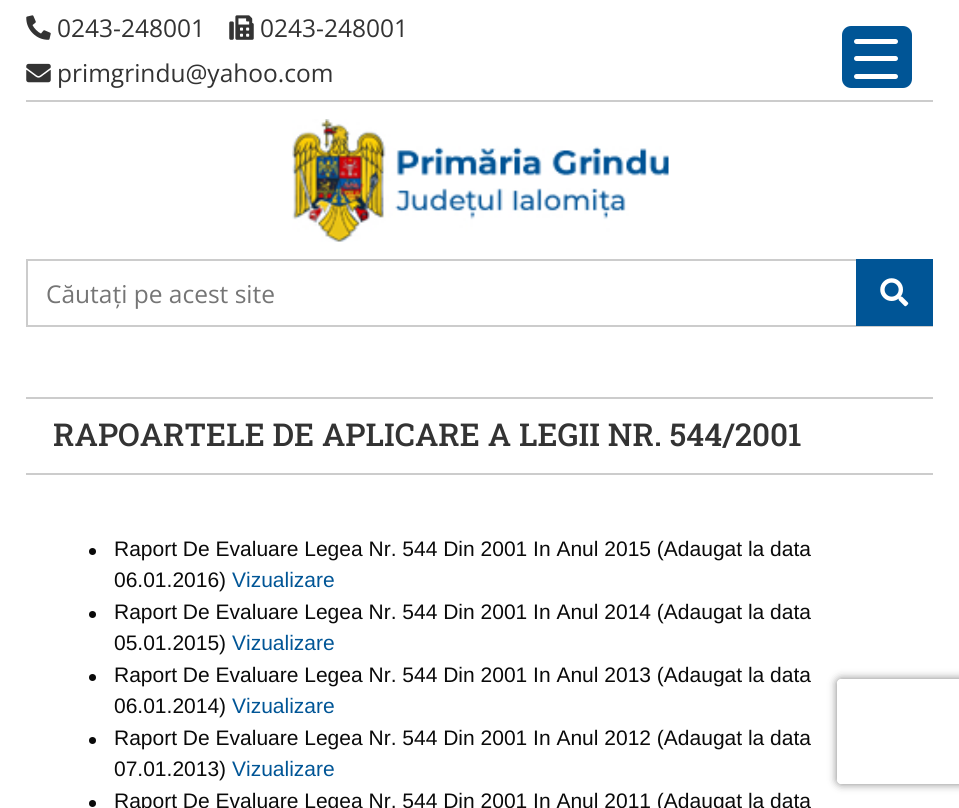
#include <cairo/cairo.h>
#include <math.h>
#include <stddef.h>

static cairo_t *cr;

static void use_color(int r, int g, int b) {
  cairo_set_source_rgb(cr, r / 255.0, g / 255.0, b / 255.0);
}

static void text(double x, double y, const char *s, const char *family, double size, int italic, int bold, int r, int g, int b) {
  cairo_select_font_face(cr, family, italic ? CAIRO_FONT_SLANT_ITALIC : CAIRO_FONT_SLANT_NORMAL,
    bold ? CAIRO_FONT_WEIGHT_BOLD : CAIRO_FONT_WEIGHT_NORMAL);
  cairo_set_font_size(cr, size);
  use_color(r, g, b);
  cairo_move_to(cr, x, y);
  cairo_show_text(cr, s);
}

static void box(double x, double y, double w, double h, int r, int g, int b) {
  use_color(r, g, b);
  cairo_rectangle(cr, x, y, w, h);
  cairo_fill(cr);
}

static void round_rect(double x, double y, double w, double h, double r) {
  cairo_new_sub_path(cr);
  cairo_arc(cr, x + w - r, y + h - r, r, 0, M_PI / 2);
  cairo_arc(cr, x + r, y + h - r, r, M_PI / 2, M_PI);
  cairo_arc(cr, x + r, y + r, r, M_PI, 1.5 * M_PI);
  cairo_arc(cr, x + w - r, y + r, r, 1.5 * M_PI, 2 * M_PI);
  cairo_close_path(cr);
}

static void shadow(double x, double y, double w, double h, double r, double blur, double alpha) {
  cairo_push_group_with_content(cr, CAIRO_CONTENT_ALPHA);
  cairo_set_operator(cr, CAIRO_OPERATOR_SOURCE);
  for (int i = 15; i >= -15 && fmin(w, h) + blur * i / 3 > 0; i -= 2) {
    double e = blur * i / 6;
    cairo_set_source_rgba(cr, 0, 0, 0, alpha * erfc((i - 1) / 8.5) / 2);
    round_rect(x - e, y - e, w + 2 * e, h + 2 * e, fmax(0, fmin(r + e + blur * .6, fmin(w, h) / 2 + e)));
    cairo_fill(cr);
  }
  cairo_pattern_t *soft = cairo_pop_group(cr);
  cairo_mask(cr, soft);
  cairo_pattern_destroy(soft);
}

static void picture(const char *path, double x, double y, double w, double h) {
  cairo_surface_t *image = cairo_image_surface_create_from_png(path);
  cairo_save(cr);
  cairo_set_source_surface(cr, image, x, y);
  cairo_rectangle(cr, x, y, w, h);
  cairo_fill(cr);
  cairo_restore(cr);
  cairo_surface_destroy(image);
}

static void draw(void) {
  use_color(255, 255, 255);
  cairo_paint(cr);
  box(26, 100, 907, 2, 204, 204, 204);
  picture("img_01.png", 26, 15, 25, 25);
  picture("img_02.png", 229, 15, 25, 25);
  picture("img_03.png", 26, 63, 25, 20);
  picture("img_04.png", 292, 119, 377, 123);
  cairo_save(cr);
  cairo_rectangle(cr, 26, 259, 907, 68);
  cairo_clip(cr);
  cairo_rectangle(cr, 27, 260, 915, 66);
  cairo_stroke(cr);
  cairo_restore(cr);
  box(856, 259, 77, 67, 0, 85, 150);
  picture("img_05.png", 880, 278, 29, 29);
  box(26, 397, 907, 2, 204, 204, 204);
  box(26, 473, 907, 2, 204, 204, 204);
  use_color(10, 10, 10);
  cairo_arc(cr, 92.5, 551.5, 3.5, 0, 2 * M_PI);
  cairo_fill(cr);
  cairo_arc(cr, 92.5, 614.5, 3.5, 0, 2 * M_PI);
  cairo_fill(cr);
  cairo_arc(cr, 92.5, 677.5, 3.5, 0, 2 * M_PI);
  cairo_fill(cr);
  cairo_arc(cr, 92.5, 740.5, 3.5, 0, 2 * M_PI);
  cairo_fill(cr);
  cairo_arc(cr, 92.5, 803.5, 3.5, 0, 2 * M_PI);
  cairo_fill(cr);
  use_color(0, 85, 150);
  round_rect(842, 26, 70, 62, 9);
  cairo_fill(cr);
  use_color(255, 255, 255);
  round_rect(854, 56, 44, 5, 2.5);
  cairo_fill(cr);
  round_rect(854, 39, 44, 5, 2.5);
  cairo_fill(cr);
  round_rect(854, 74, 44, 5, 2.5);
  cairo_fill(cr);
  cairo_save(cr);
  cairo_set_fill_rule(cr, CAIRO_FILL_RULE_EVEN_ODD);
  cairo_new_path(cr);
  cairo_move_to(cr, 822, 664);
  cairo_line_to(cr, 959, 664);
  cairo_line_to(cr, 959, 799);
  cairo_line_to(cr, 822, 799);
  cairo_close_path(cr);
  cairo_move_to(cr, 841, 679);
  cairo_line_to(cr, 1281, 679);
  cairo_curve_to(cr, 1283, 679, 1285, 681, 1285, 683);
  cairo_line_to(cr, 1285, 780);
  cairo_curve_to(cr, 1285, 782, 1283, 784, 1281, 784);
  cairo_line_to(cr, 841, 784);
  cairo_curve_to(cr, 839, 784, 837, 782, 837, 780);
  cairo_line_to(cr, 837, 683);
  cairo_curve_to(cr, 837, 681, 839, 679, 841, 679);
  cairo_close_path(cr);
  cairo_clip(cr);
  use_color(128, 128, 128);
  shadow(837, 679, 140, 105, 4, 4.5, 1);
  cairo_restore(cr);
  text(57, 37, "0243-248001", "Open Sans", 24.5, 0, 0, 51, 51, 51);
  text(260, 37, "0243-248001", "Open Sans", 24.5, 0, 0, 51, 51, 51);
  text(57, 82, "primgrindu@yahoo.com", "Open Sans", 24.5, 0, 0, 51, 51, 51);
  text(46, 303, "Căutați pe acest site", "Open Sans", 24.5, 0, 0, 117, 117, 117);
  text(53, 446, "RAPOARTELE DE APLICARE A LEGII NR. 544/2001", "Roboto Slab Medium", 31.5, 0, 0, 51, 51, 51);
  text(114, 556, "Raport De Evaluare Legea Nr. 544 Din 2001 In Anul 2015 (Adaugat la data", "Liberation Sans", 21, 0, 0, 10, 10, 10);
  text(114, 587, "06.01.2016)", "Liberation Sans", 21, 0, 0, 10, 10, 10);
  text(232, 587, "Vizualizare", "Liberation Sans", 21, 0, 0, 0, 85, 150);
  text(114, 619, "Raport De Evaluare Legea Nr. 544 Din 2001 In Anul 2014 (Adaugat la data", "Liberation Sans", 21, 0, 0, 10, 10, 10);
  text(114, 650, "05.01.2015)", "Liberation Sans", 21, 0, 0, 10, 10, 10);
  text(232, 650, "Vizualizare", "Liberation Sans", 21, 0, 0, 0, 85, 150);
  text(114, 682, "Raport De Evaluare Legea Nr. 544 Din 2001 In Anul 2013 (Adaugat la data", "Liberation Sans", 21, 0, 0, 10, 10, 10);
  text(114, 713, "06.01.2014)", "Liberation Sans", 21, 0, 0, 10, 10, 10);
  text(232, 713, "Vizualizare", "Liberation Sans", 21, 0, 0, 0, 85, 150);
  text(114, 745, "Raport De Evaluare Legea Nr. 544 Din 2001 In Anul 2012 (Adaugat la data", "Liberation Sans", 21, 0, 0, 10, 10, 10);
  text(114, 776, "07.01.2013)", "Liberation Sans", 21, 0, 0, 10, 10, 10);
  text(232, 776, "Vizualizare", "Liberation Sans", 21, 0, 0, 0, 85, 150);
  text(114, 808, "Raport De Evaluare Legea Nr. 544 Din 2001 In Anul 2011 (Adaugat la data", "Liberation Sans", 21, 0, 0, 10, 10, 10);
}

int main(void) {
  cairo_surface_t *surface = cairo_image_surface_create(CAIRO_FORMAT_RGB24, 959, 808);
  cr = cairo_create(surface);
  cairo_font_options_t *options = cairo_font_options_create();
  cairo_font_options_set_hint_metrics(options, CAIRO_HINT_METRICS_OFF);
  cairo_font_options_set_hint_style(options, CAIRO_HINT_STYLE_NONE);
  cairo_set_font_options(cr, options);
  cairo_set_miter_limit(cr, 4);
  draw();
  cairo_surface_write_to_png(surface, "out.png");
  cairo_font_options_destroy(options);
  cairo_destroy(cr);
  cairo_surface_destroy(surface);
  return 0;
}
